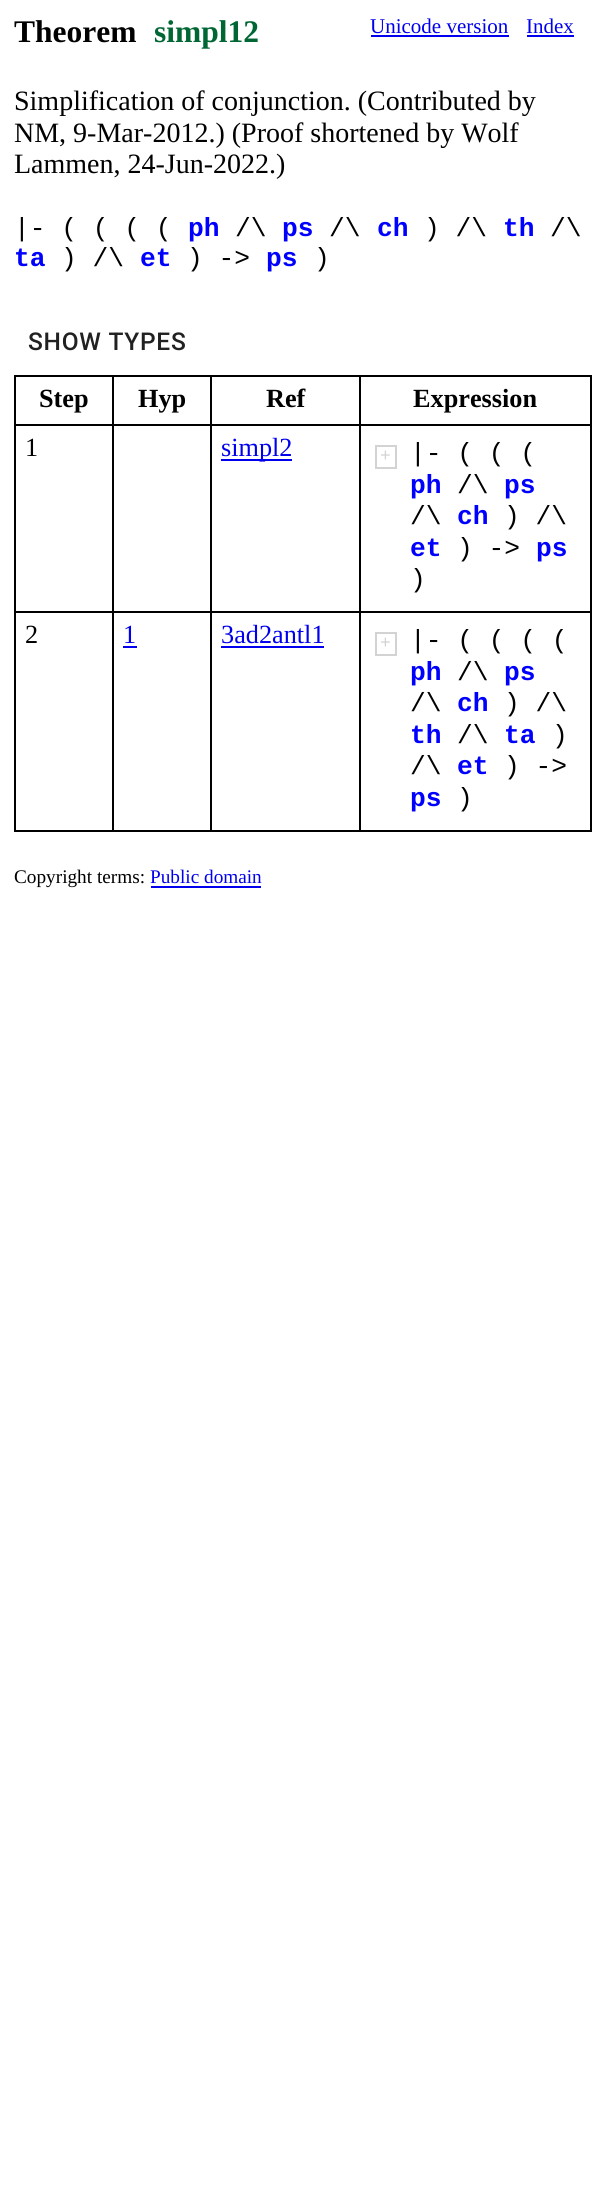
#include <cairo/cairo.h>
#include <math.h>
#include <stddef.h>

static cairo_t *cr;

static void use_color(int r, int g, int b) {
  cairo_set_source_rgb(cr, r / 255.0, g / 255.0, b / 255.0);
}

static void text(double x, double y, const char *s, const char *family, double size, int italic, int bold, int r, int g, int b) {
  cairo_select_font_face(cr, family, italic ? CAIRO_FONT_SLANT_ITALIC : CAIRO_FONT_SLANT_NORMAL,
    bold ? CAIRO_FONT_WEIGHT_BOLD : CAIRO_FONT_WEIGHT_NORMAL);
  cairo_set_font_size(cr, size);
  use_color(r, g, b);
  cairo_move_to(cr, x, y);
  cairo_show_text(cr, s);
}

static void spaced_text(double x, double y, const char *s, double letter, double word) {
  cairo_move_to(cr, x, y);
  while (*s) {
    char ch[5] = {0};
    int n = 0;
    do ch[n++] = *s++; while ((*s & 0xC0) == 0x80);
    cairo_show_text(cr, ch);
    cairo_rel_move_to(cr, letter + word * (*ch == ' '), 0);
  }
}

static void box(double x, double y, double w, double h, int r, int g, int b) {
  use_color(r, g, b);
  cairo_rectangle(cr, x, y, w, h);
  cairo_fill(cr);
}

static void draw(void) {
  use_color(255, 255, 255);
  cairo_paint(cr);
  box(371, 35, 138, 2, 0, 0, 238);
  box(527, 35, 47, 2, 0, 0, 238);
  box(359, 375, 233, 2, 0, 0, 0);
  box(359, 424, 233, 2, 0, 0, 0);
  box(359, 611, 233, 2, 0, 0, 0);
  box(590, 611, 2, 220, 0, 0, 0);
  box(359, 830, 233, 2, 0, 0, 0);
  box(359, 611, 2, 220, 0, 0, 0);
  box(210, 611, 151, 2, 0, 0, 0);
  box(359, 424, 2, 189, 0, 0, 0);
  box(210, 424, 151, 2, 0, 0, 0);
  box(359, 375, 2, 50, 0, 0, 0);
  box(210, 375, 151, 2, 0, 0, 0);
  box(210, 830, 151, 2, 0, 0, 0);
  box(210, 611, 2, 220, 0, 0, 0);
  box(112, 611, 100, 2, 0, 0, 0);
  box(210, 424, 2, 189, 0, 0, 0);
  box(112, 424, 100, 2, 0, 0, 0);
  box(210, 375, 2, 50, 0, 0, 0);
  box(112, 375, 100, 2, 0, 0, 0);
  box(112, 830, 100, 2, 0, 0, 0);
  box(112, 611, 2, 220, 0, 0, 0);
  box(14, 611, 100, 2, 0, 0, 0);
  box(112, 424, 2, 189, 0, 0, 0);
  box(14, 424, 100, 2, 0, 0, 0);
  box(112, 375, 2, 50, 0, 0, 0);
  box(14, 375, 100, 2, 0, 0, 0);
  box(14, 830, 100, 2, 0, 0, 0);
  box(14, 611, 2, 220, 0, 0, 0);
  box(14, 424, 2, 189, 0, 0, 0);
  box(14, 375, 2, 50, 0, 0, 0);
  box(590, 424, 2, 189, 0, 0, 0);
  box(590, 375, 2, 50, 0, 0, 0);
  box(221, 459, 71, 2, 0, 0, 238);
  cairo_rectangle(cr, 376, 446, 20, 22);
  use_color(211, 211, 211);
  cairo_stroke(cr);
  box(123, 646, 14, 2, 0, 0, 238);
  box(221, 646, 103, 2, 0, 0, 238);
  cairo_rectangle(cr, 376, 633, 20, 22);
  use_color(211, 211, 211);
  cairo_stroke(cr);
  box(151, 886, 110, 2, 0, 0, 238);
  text(14, 42, "Theorem", "Liberation Serif", 31.5, 0, 1, 0, 0, 0);
  text(154, 42, "simpl12", "Liberation Serif", 31.5, 0, 1, 0, 102, 51);
  text(370, 33, "Unicode version", "Liberation Serif", 21, 0, 0, 0, 0, 238);
  text(526, 33, "Index", "Liberation Serif", 21, 0, 0, 0, 0, 238);
  text(14, 110, "Simplification of conjunction. (Contributed by", "Liberation Serif", 28, 0, 0, 0, 0, 0);
  text(14, 142, "NM, 9-Mar-2012.) (Proof shortened by Wolf", "Liberation Serif", 28, 0, 0, 0, 0, 0);
  text(14, 173, "Lammen, 24-Jun-2022.)", "Liberation Serif", 28, 0, 0, 0, 0, 0);
  text(14, 236, "|- ( ( ( (", "Liberation Mono", 26.25, 0, 0, 0, 0, 0);
  text(188, 236, "ph", "Liberation Mono", 26.25, 0, 1, 0, 0, 255);
  text(235, 236, "/\\", "Liberation Mono", 26.25, 0, 0, 0, 0, 0);
  text(282, 236, "ps", "Liberation Mono", 26.25, 0, 1, 0, 0, 255);
  text(329, 236, "/\\", "Liberation Mono", 26.25, 0, 0, 0, 0, 0);
  text(377, 236, "ch", "Liberation Mono", 26.25, 0, 1, 0, 0, 255);
  text(424, 236, ") /\\", "Liberation Mono", 26.25, 0, 0, 0, 0, 0);
  text(503, 236, "th", "Liberation Mono", 26.25, 0, 1, 0, 0, 255);
  text(550, 236, "/\\", "Liberation Mono", 26.25, 0, 0, 0, 0, 0);
  text(14, 266, "ta", "Liberation Mono", 26.25, 0, 1, 0, 0, 255);
  text(61, 266, ") /\\", "Liberation Mono", 26.25, 0, 0, 0, 0, 0);
  text(140, 266, "et", "Liberation Mono", 26.25, 0, 1, 0, 0, 255);
  text(187, 266, ") ->", "Liberation Mono", 26.25, 0, 0, 0, 0, 0);
  text(266, 266, "ps", "Liberation Mono", 26.25, 0, 1, 0, 0, 255);
  text(314, 266, ")", "Liberation Mono", 26.25, 0, 0, 0, 0, 0);
  cairo_select_font_face(cr, "Roboto Medium", CAIRO_FONT_SLANT_NORMAL, CAIRO_FONT_WEIGHT_NORMAL);
  cairo_set_font_size(cr, 24.5);
  use_color(33, 33, 33);
  spaced_text(28, 350, "SHOW TYPES", 0.75, 0);
  text(39, 407, "Step", "Liberation Serif", 26.25, 0, 1, 0, 0, 0);
  text(138, 407, "Hyp", "Liberation Serif", 26.25, 0, 1, 0, 0, 0);
  text(266, 407, "Ref", "Liberation Serif", 26.25, 0, 1, 0, 0, 0);
  text(413, 407, "Expression", "Liberation Serif", 26.25, 0, 1, 0, 0, 0);
  text(25, 456, "1", "Liberation Serif", 26.25, 0, 0, 0, 0, 0);
  text(221, 456, "simpl2", "Liberation Serif", 26.25, 0, 0, 0, 0, 238);
  text(380, 461, "+", "Liberation Mono", 18, 0, 0, 211, 211, 211);
  text(410, 461, "|- ( ( (", "Liberation Mono", 26.25, 0, 0, 0, 0, 0);
  text(410, 493, "ph", "Liberation Mono", 26.25, 0, 1, 0, 0, 255);
  text(457, 493, "/\\", "Liberation Mono", 26.25, 0, 0, 0, 0, 0);
  text(504, 493, "ps", "Liberation Mono", 26.25, 0, 1, 0, 0, 255);
  text(410, 524, "/\\", "Liberation Mono", 26.25, 0, 0, 0, 0, 0);
  text(457, 524, "ch", "Liberation Mono", 26.25, 0, 1, 0, 0, 255);
  text(504, 524, ") /\\", "Liberation Mono", 26.25, 0, 0, 0, 0, 0);
  text(410, 556, "et", "Liberation Mono", 26.25, 0, 1, 0, 0, 255);
  text(457, 556, ") ->", "Liberation Mono", 26.25, 0, 0, 0, 0, 0);
  text(536, 556, "ps", "Liberation Mono", 26.25, 0, 1, 0, 0, 255);
  text(410, 587, ")", "Liberation Mono", 26.25, 0, 0, 0, 0, 0);
  text(25, 643, "2", "Liberation Serif", 26.25, 0, 0, 0, 0, 0);
  text(123, 643, "1", "Liberation Serif", 26.25, 0, 0, 0, 0, 238);
  text(221, 643, "3ad2antl1", "Liberation Serif", 26.25, 0, 0, 0, 0, 238);
  text(380, 648, "+", "Liberation Mono", 18, 0, 0, 211, 211, 211);
  text(410, 648, "|- ( ( ( (", "Liberation Mono", 26.25, 0, 0, 0, 0, 0);
  text(410, 680, "ph", "Liberation Mono", 26.25, 0, 1, 0, 0, 255);
  text(457, 680, "/\\", "Liberation Mono", 26.25, 0, 0, 0, 0, 0);
  text(504, 680, "ps", "Liberation Mono", 26.25, 0, 1, 0, 0, 255);
  text(410, 711, "/\\", "Liberation Mono", 26.25, 0, 0, 0, 0, 0);
  text(457, 711, "ch", "Liberation Mono", 26.25, 0, 1, 0, 0, 255);
  text(504, 711, ") /\\", "Liberation Mono", 26.25, 0, 0, 0, 0, 0);
  text(410, 743, "th", "Liberation Mono", 26.25, 0, 1, 0, 0, 255);
  text(457, 743, "/\\", "Liberation Mono", 26.25, 0, 0, 0, 0, 0);
  text(504, 743, "ta", "Liberation Mono", 26.25, 0, 1, 0, 0, 255);
  text(552, 743, ")", "Liberation Mono", 26.25, 0, 0, 0, 0, 0);
  text(410, 774, "/\\", "Liberation Mono", 26.25, 0, 0, 0, 0, 0);
  text(457, 774, "et", "Liberation Mono", 26.25, 0, 1, 0, 0, 255);
  text(504, 774, ") ->", "Liberation Mono", 26.25, 0, 0, 0, 0, 0);
  text(410, 806, "ps", "Liberation Mono", 26.25, 0, 1, 0, 0, 255);
  text(457, 806, ")", "Liberation Mono", 26.25, 0, 0, 0, 0, 0);
  text(14, 883, "Copyright terms:", "Liberation Serif", 19.25, 0, 0, 0, 0, 0);
  text(150, 883, "Public domain", "Liberation Serif", 19.25, 0, 0, 0, 0, 238);
}

int main(void) {
  cairo_surface_t *surface = cairo_image_surface_create(CAIRO_FORMAT_RGB24, 605, 2185);
  cr = cairo_create(surface);
  cairo_font_options_t *options = cairo_font_options_create();
  cairo_font_options_set_hint_metrics(options, CAIRO_HINT_METRICS_OFF);
  cairo_font_options_set_hint_style(options, CAIRO_HINT_STYLE_NONE);
  cairo_set_font_options(cr, options);
  cairo_set_miter_limit(cr, 4);
  draw();
  cairo_surface_write_to_png(surface, "out.png");
  cairo_font_options_destroy(options);
  cairo_destroy(cr);
  cairo_surface_destroy(surface);
  return 0;
}
